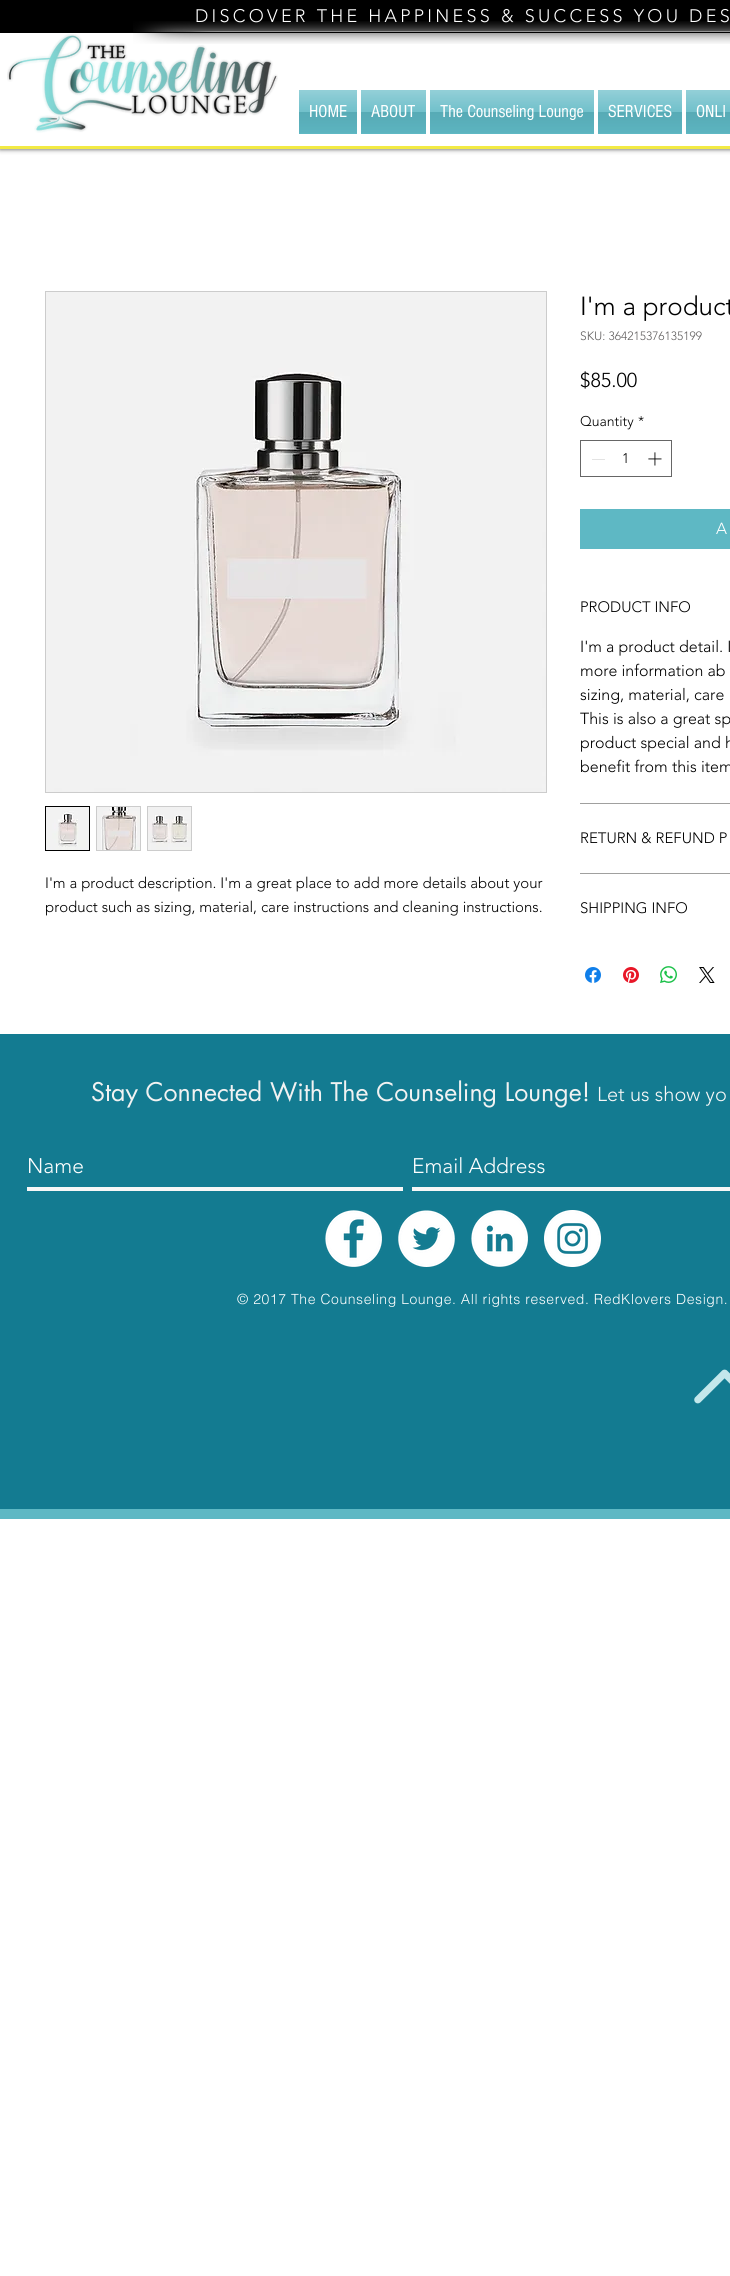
#include <cairo/cairo.h>
#include <math.h>
#include <stddef.h>

static cairo_t *cr;

static void use_color(int r, int g, int b) {
  cairo_set_source_rgb(cr, r / 255.0, g / 255.0, b / 255.0);
}

static void text(double x, double y, const char *s, const char *family, double size, int italic, int bold, int r, int g, int b) {
  cairo_select_font_face(cr, family, italic ? CAIRO_FONT_SLANT_ITALIC : CAIRO_FONT_SLANT_NORMAL,
    bold ? CAIRO_FONT_WEIGHT_BOLD : CAIRO_FONT_WEIGHT_NORMAL);
  cairo_set_font_size(cr, size);
  use_color(r, g, b);
  cairo_move_to(cr, x, y);
  cairo_show_text(cr, s);
}

static void spaced_text(double x, double y, const char *s, double letter, double word) {
  cairo_move_to(cr, x, y);
  while (*s) {
    char ch[5] = {0};
    int n = 0;
    do ch[n++] = *s++; while ((*s & 0xC0) == 0x80);
    cairo_show_text(cr, ch);
    cairo_rel_move_to(cr, letter + word * (*ch == ' '), 0);
  }
}

static void box(double x, double y, double w, double h, int r, int g, int b) {
  use_color(r, g, b);
  cairo_rectangle(cr, x, y, w, h);
  cairo_fill(cr);
}

static void round_rect(double x, double y, double w, double h, double r) {
  cairo_new_sub_path(cr);
  cairo_arc(cr, x + w - r, y + h - r, r, 0, M_PI / 2);
  cairo_arc(cr, x + r, y + h - r, r, M_PI / 2, M_PI);
  cairo_arc(cr, x + r, y + r, r, M_PI, 1.5 * M_PI);
  cairo_arc(cr, x + w - r, y + r, r, 1.5 * M_PI, 2 * M_PI);
  cairo_close_path(cr);
}

static void shadow(double x, double y, double w, double h, double r, double blur, double alpha) {
  cairo_push_group_with_content(cr, CAIRO_CONTENT_ALPHA);
  cairo_set_operator(cr, CAIRO_OPERATOR_SOURCE);
  for (int i = 15; i >= -15 && fmin(w, h) + blur * i / 3 > 0; i -= 2) {
    double e = blur * i / 6;
    cairo_set_source_rgba(cr, 0, 0, 0, alpha * erfc((i - 1) / 8.5) / 2);
    round_rect(x - e, y - e, w + 2 * e, h + 2 * e, fmax(0, fmin(r + e + blur * .6, fmin(w, h) / 2 + e)));
    cairo_fill(cr);
  }
  cairo_pattern_t *soft = cairo_pop_group(cr);
  cairo_mask(cr, soft);
  cairo_pattern_destroy(soft);
}

static void picture(const char *path, double x, double y, double w, double h) {
  cairo_surface_t *image = cairo_image_surface_create_from_png(path);
  cairo_save(cr);
  cairo_set_source_surface(cr, image, x, y);
  cairo_rectangle(cr, x, y, w, h);
  cairo_fill(cr);
  cairo_restore(cr);
  cairo_surface_destroy(image);
}

static void draw(void) {
  use_color(255, 255, 255);
  cairo_paint(cr);
  use_color(0, 0, 0);
  shadow(0, 0, 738, 149, 0, 2.5, 0.7);
  box(0, 33, 730, 113, 255, 255, 255);
  box(0, 146, 730, 3, 242, 234, 68);
  box(0, 0, 730, 33, 0, 0, 0);
  picture("img_03.png", 7, 34, 271, 99);
  box(299, 90, 58, 44, 94, 184, 196);
  picture("img_04.png", 299, 90, 58, 43);
  box(361, 90, 65, 44, 94, 184, 196);
  picture("img_05.png", 361, 90, 65, 43);
  box(430, 90, 164, 44, 94, 184, 196);
  picture("img_06.png", 430, 90, 164, 43);
  box(598, 90, 84, 44, 94, 184, 196);
  picture("img_07.png", 598, 90, 84, 43);
  box(686, 90, 44, 44, 94, 184, 196);
  picture("img_08.png", 686, 90, 44, 43);
  cairo_rectangle(cr, 45.5, 291.5, 501, 501);
  use_color(204, 204, 204);
  cairo_set_line_width(cr, 1);
  cairo_stroke(cr);
  picture("img_09.png", 46, 292, 500, 500);
  cairo_rectangle(cr, 45.5, 806.5, 44, 44);
  use_color(0, 0, 0);
  cairo_stroke(cr);
  picture("img_10.png", 46, 807, 43, 43);
  cairo_rectangle(cr, 96.5, 806.5, 44, 44);
  use_color(204, 204, 204);
  cairo_stroke(cr);
  picture("img_11.png", 97, 807, 43, 43);
  cairo_rectangle(cr, 147.5, 806.5, 44, 44);
  cairo_stroke(cr);
  picture("img_12.png", 148, 807, 43, 43);
  cairo_rectangle(cr, 580.5, 440.5, 91, 36);
  use_color(102, 102, 102);
  cairo_stroke(cr);
  box(592, 459, 13, 1, 227, 227, 227);
  picture("img_13.png", 648, 452, 14, 14);
  box(580, 509, 150, 40, 94, 184, 196);
  box(580, 803, 150, 1, 160, 160, 159);
  box(580, 873, 150, 1, 160, 160, 159);
  picture("img_14.png", 585, 967, 16, 16);
  picture("img_15.png", 623, 967, 16, 16);
  picture("img_16.png", 660, 966, 17, 17);
  picture("img_17.png", 699, 967, 16, 16);
  box(0, 1034, 730, 475, 19, 123, 145);
  box(27, 1187, 376, 4, 247, 247, 247);
  box(412, 1187, 318, 4, 247, 247, 247);
  picture("img_18.png", 325, 1210, 57, 57);
  picture("img_19.png", 398, 1210, 57, 57);
  picture("img_20.png", 471, 1210, 57, 57);
  picture("img_21.png", 544, 1210, 57, 57);
  picture("img_22.png", 694, 1369, 36, 35);
  box(0, 1509, 730, 10, 94, 184, 196);
  cairo_select_font_face(cr, "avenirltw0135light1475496 Light", CAIRO_FONT_SLANT_NORMAL, CAIRO_FONT_WEIGHT_NORMAL);
  cairo_set_font_size(cr, 18);
  use_color(255, 255, 255);
  spaced_text(195, 22, "DISCOVER THE HAPPINESS & SUCCESS YOU DES", 3.25, 0);
  picture("img_01.png", 133, 21, 97, 23);
  picture("img_02.png", 230, 21, 500, 23);
  text(309, 117, "HOME", "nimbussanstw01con", 18, 0, 0, 255, 255, 255);
  text(371, 117, "ABOUT", "nimbussanstw01con", 18, 0, 0, 255, 255, 255);
  text(440, 117, "The Counseling Lounge", "nimbussanstw01con", 18, 0, 0, 255, 255, 255);
  text(608, 117, "SERVICES", "nimbussanstw01con", 18, 0, 0, 255, 255, 255);
  text(696, 117, "ONLI", "nimbussanstw01con", 18, 0, 0, 255, 255, 255);
  text(45, 888, "I'm a product description. I'm a great place to add more details about your", "avenirltw0135light1475496 Light", 15, 0, 0, 0, 0, 0);
  text(45, 912, "product such as sizing, material, care instructions and cleaning instructions.", "avenirltw0135light1475496 Light", 15, 0, 0, 0, 0, 0);
  text(580, 315, "I'm a product", "avenirltw0135light1475496 Light", 26, 0, 0, 0, 0, 0);
  text(580, 340, "SKU: 364215376135199", "avenirltw0135light1475496 Light", 12, 0, 0, 96, 94, 94);
  text(580, 387, "$85.00", "avenirltw0135light1475496 Light", 20, 0, 0, 0, 0, 0);
  text(580, 426, "Quantity", "avenirltw0135light1475496 Light", 14, 0, 0, 0, 0, 0);
  text(638, 426, "*", "avenirltw0135light1475496 Light", 14, 0, 0, 0, 0, 0);
  text(622, 463, "1", "avenirltw0135light1475496 Light", 14, 0, 0, 0, 0, 0);
  text(716, 534, "A", "avenirltw0135light1475496 Light", 16, 0, 0, 255, 255, 255);
  text(580, 612, "PRODUCT INFO", "avenirltw0135light1475496 Light", 15, 0, 0, 0, 0, 0);
  text(580, 652, "I'm a product detail. I", "avenirltw0135light1475496 Light", 16, 0, 0, 0, 0, 0);
  text(580, 676, "more information ab", "avenirltw0135light1475496 Light", 16, 0, 0, 0, 0, 0);
  text(580, 700, "sizing, material, care", "avenirltw0135light1475496 Light", 16, 0, 0, 0, 0, 0);
  text(580, 724, "This is also a great sp", "avenirltw0135light1475496 Light", 16, 0, 0, 0, 0, 0);
  text(580, 748, "product special and h", "avenirltw0135light1475496 Light", 16, 0, 0, 0, 0, 0);
  text(580, 772, "benefit from this item", "avenirltw0135light1475496 Light", 16, 0, 0, 0, 0, 0);
  text(580, 843, "RETURN & REFUND P", "avenirltw0135light1475496 Light", 15, 0, 0, 0, 0, 0);
  text(580, 913, "SHIPPING INFO", "avenirltw0135light1475496 Light", 15, 0, 0, 0, 0, 0);
  text(91, 1101, "Stay Connected With The Counseling Lounge!", "futura", 25, 0, 0, 241, 242, 242);
  text(597, 1101, "Let us show yo", "avenirltw0135light1475496 Light", 20, 0, 0, 247, 247, 247);
  text(27, 1173, "Name", "avenirltw0135light1475496 Light", 21, 0, 0, 255, 255, 255);
  text(412, 1173, "Email Address", "avenirltw0135light1475496 Light", 21, 0, 0, 255, 255, 255);
  cairo_select_font_face(cr, "helvetica Light", CAIRO_FONT_SLANT_NORMAL, CAIRO_FONT_WEIGHT_NORMAL);
  cairo_set_font_size(cr, 14);
  spaced_text(237, 1304, "© 2017 The Counseling Lounge. All rights reserved. RedKlovers Design.", 0.55, 0);
}

int main(void) {
  cairo_surface_t *surface = cairo_image_surface_create(CAIRO_FORMAT_RGB24, 730, 2276);
  cr = cairo_create(surface);
  cairo_font_options_t *options = cairo_font_options_create();
  cairo_font_options_set_hint_metrics(options, CAIRO_HINT_METRICS_OFF);
  cairo_font_options_set_hint_style(options, CAIRO_HINT_STYLE_NONE);
  cairo_set_font_options(cr, options);
  cairo_set_miter_limit(cr, 4);
  draw();
  cairo_surface_write_to_png(surface, "out.png");
  cairo_font_options_destroy(options);
  cairo_destroy(cr);
  cairo_surface_destroy(surface);
  return 0;
}
